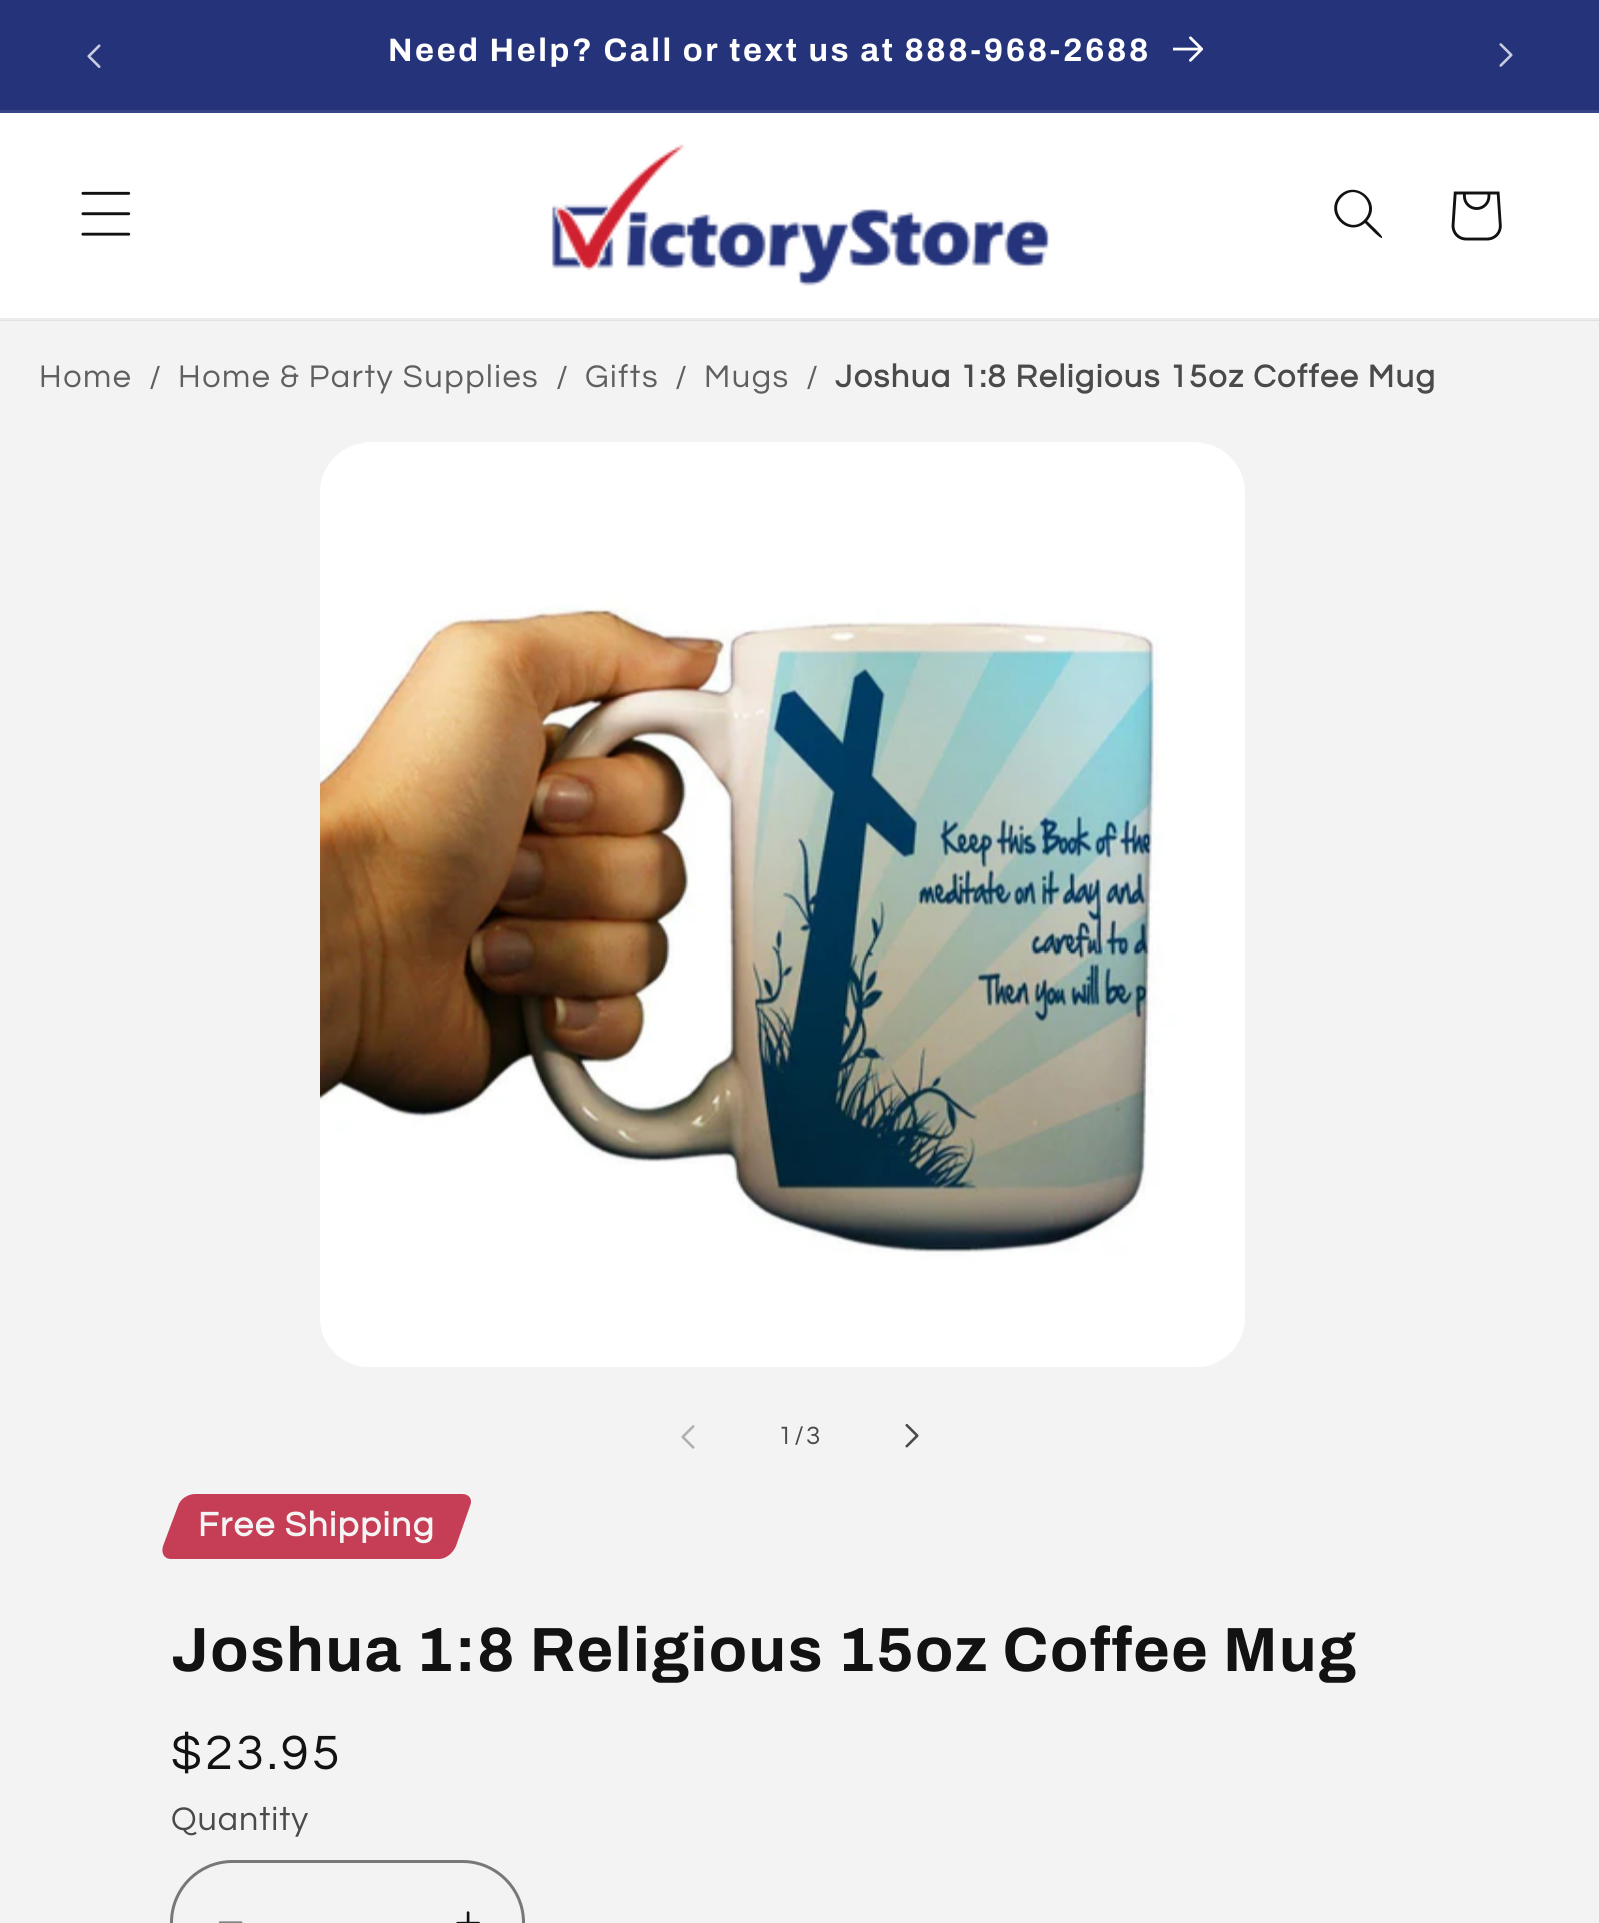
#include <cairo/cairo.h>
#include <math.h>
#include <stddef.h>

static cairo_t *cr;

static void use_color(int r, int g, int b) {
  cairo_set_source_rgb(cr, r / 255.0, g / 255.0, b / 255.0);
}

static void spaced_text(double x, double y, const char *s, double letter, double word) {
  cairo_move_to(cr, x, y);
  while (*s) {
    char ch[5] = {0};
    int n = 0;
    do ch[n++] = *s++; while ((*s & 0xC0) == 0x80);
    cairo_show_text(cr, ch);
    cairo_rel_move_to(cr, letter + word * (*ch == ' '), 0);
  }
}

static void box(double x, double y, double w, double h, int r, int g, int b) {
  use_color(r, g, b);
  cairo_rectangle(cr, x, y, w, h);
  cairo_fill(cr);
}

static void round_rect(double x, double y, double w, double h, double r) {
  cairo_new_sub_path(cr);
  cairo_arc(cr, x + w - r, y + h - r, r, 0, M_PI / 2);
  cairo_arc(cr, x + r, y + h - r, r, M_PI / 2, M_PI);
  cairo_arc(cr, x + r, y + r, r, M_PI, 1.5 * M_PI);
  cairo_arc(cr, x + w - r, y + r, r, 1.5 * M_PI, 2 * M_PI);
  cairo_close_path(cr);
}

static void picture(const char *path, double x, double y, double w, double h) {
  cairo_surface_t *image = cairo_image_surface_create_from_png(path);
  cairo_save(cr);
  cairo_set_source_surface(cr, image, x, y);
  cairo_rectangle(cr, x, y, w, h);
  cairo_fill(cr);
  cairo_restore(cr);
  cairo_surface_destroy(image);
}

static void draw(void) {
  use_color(243, 243, 243);
  cairo_paint(cr);
  box(0, 320, 1599, 1, 225, 225, 225);
  box(0, 0, 1599, 110, 37, 51, 122);
  box(0, 110, 1599, 3, 54, 67, 133);
  picture("img_01.png", 87, 44, 14, 24);
  picture("img_02.png", 1173, 36, 31, 26);
  picture("img_03.png", 1499, 43, 14, 24);
  box(0, 113, 1599, 205, 255, 255, 255);
  box(0, 318, 1599, 2, 236, 236, 236);
  picture("img_04.png", 81, 191, 50, 45);
  picture("img_05.png", 551, 144, 499, 142);
  use_color(18, 18, 18);
  cairo_set_fill_rule(cr, CAIRO_FILL_RULE_EVEN_ODD);
  cairo_new_path(cr);
  cairo_move_to(cr, 1364, 220);
  cairo_curve_to(cr, 1350, 235, 1327, 212, 1342, 197);
  cairo_curve_to(cr, 1357, 182, 1379, 205, 1364, 220);
  cairo_close_path(cr);
  cairo_move_to(cr, 1365, 223);
  cairo_curve_to(cr, 1347, 238, 1323, 212, 1340, 195);
  cairo_curve_to(cr, 1357, 179, 1383, 203, 1367, 221);
  cairo_curve_to(cr, 1369, 223, 1382, 235, 1382, 237);
  cairo_line_to(cr, 1382, 238);
  cairo_curve_to(cr, 1380, 239, 1367, 225, 1365, 223);
  cairo_close_path(cr);
  cairo_fill(cr);
  picture("img_06.png", 1451, 191, 51, 50);
  picture("img_07.png", 320, 442, 925, 925);
  picture("img_08.png", 681, 1425, 14, 24);
  picture("img_09.png", 905, 1423, 14, 25);
  use_color(197, 62, 86);
  cairo_set_fill_rule(cr, CAIRO_FILL_RULE_WINDING);
  cairo_new_path(cr);
  cairo_move_to(cr, 195, 1494);
  cairo_line_to(cr, 462, 1494);
  cairo_curve_to(cr, 469, 1494, 473, 1499, 470, 1506);
  cairo_line_to(cr, 456, 1546);
  cairo_curve_to(cr, 453, 1553, 446, 1559, 439, 1559);
  cairo_line_to(cr, 171, 1559);
  cairo_curve_to(cr, 164, 1559, 161, 1553, 163, 1546);
  cairo_line_to(cr, 178, 1506);
  cairo_curve_to(cr, 180, 1499, 188, 1494, 195, 1494);
  cairo_close_path(cr);
  cairo_fill(cr);
  picture("img_10.png", 218, 1921, 25, 2);
  picture("img_11.png", 456, 1911, 24, 12);
  round_rect(171.5, 1861.5, 352, 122, 61);
  use_color(119, 119, 119);
  cairo_set_line_width(cr, 3);
  cairo_stroke(cr);
  cairo_select_font_face(cr, "Archivo", CAIRO_FONT_SLANT_NORMAL, CAIRO_FONT_WEIGHT_BOLD);
  cairo_set_font_size(cr, 32.5);
  use_color(255, 255, 255);
  spaced_text(388, 61, "Need Help? Call or text us at 888-968-2688", 2.6, 0);
  cairo_select_font_face(cr, "Questrial", CAIRO_FONT_SLANT_NORMAL, CAIRO_FONT_WEIGHT_NORMAL);
  use_color(95, 95, 95);
  spaced_text(39, 387, "Home", 1.55, 0);
  spaced_text(149, 388, "/", 1.55, 0);
  spaced_text(178, 387, "Home & Party Supplies", 1.55, 0);
  spaced_text(556, 388, "/", 1.55, 0);
  spaced_text(585, 387, "Gifts", 1.55, 0);
  spaced_text(675, 388, "/", 1.55, 0);
  spaced_text(704, 387, "Mugs", 1.55, 0);
  spaced_text(806, 388, "/", 1.55, 0);
  cairo_select_font_face(cr, "Questrial", CAIRO_FONT_SLANT_NORMAL, CAIRO_FONT_WEIGHT_BOLD);
  use_color(74, 74, 74);
  spaced_text(835, 387, "Joshua 1:8 Religious 15oz Coffee Mug", 1.55, 0);
  cairo_select_font_face(cr, "Questrial", CAIRO_FONT_SLANT_NORMAL, CAIRO_FONT_WEIGHT_NORMAL);
  cairo_set_font_size(cr, 26);
  spaced_text(778, 1444, "1/3", 2, 0);
  cairo_select_font_face(cr, "Questrial", CAIRO_FONT_SLANT_NORMAL, CAIRO_FONT_WEIGHT_BOLD);
  cairo_set_font_size(cr, 35);
  use_color(244, 244, 244);
  spaced_text(198, 1536, "Free Shipping", 1.55, 0);
  cairo_select_font_face(cr, "Archivo", CAIRO_FONT_SLANT_NORMAL, CAIRO_FONT_WEIGHT_BOLD);
  cairo_set_font_size(cr, 62.5);
  use_color(18, 18, 18);
  spaced_text(171, 1671, "Joshua 1:8 Religious 15oz Coffee Mug", 1.5, 0);
  cairo_select_font_face(cr, "Questrial", CAIRO_FONT_SLANT_NORMAL, CAIRO_FONT_WEIGHT_NORMAL);
  cairo_set_font_size(cr, 50);
  spaced_text(171, 1769, "$23.95", 3.5, 0);
  cairo_set_font_size(cr, 34);
  use_color(74, 74, 74);
  spaced_text(171, 1830, "Quantity", 1, 0);
}

int main(void) {
  cairo_surface_t *surface = cairo_image_surface_create(CAIRO_FORMAT_RGB24, 1599, 1923);
  cr = cairo_create(surface);
  cairo_font_options_t *options = cairo_font_options_create();
  cairo_font_options_set_hint_metrics(options, CAIRO_HINT_METRICS_OFF);
  cairo_font_options_set_hint_style(options, CAIRO_HINT_STYLE_NONE);
  cairo_set_font_options(cr, options);
  cairo_set_miter_limit(cr, 4);
  draw();
  cairo_surface_write_to_png(surface, "out.png");
  cairo_font_options_destroy(options);
  cairo_destroy(cr);
  cairo_surface_destroy(surface);
  return 0;
}
